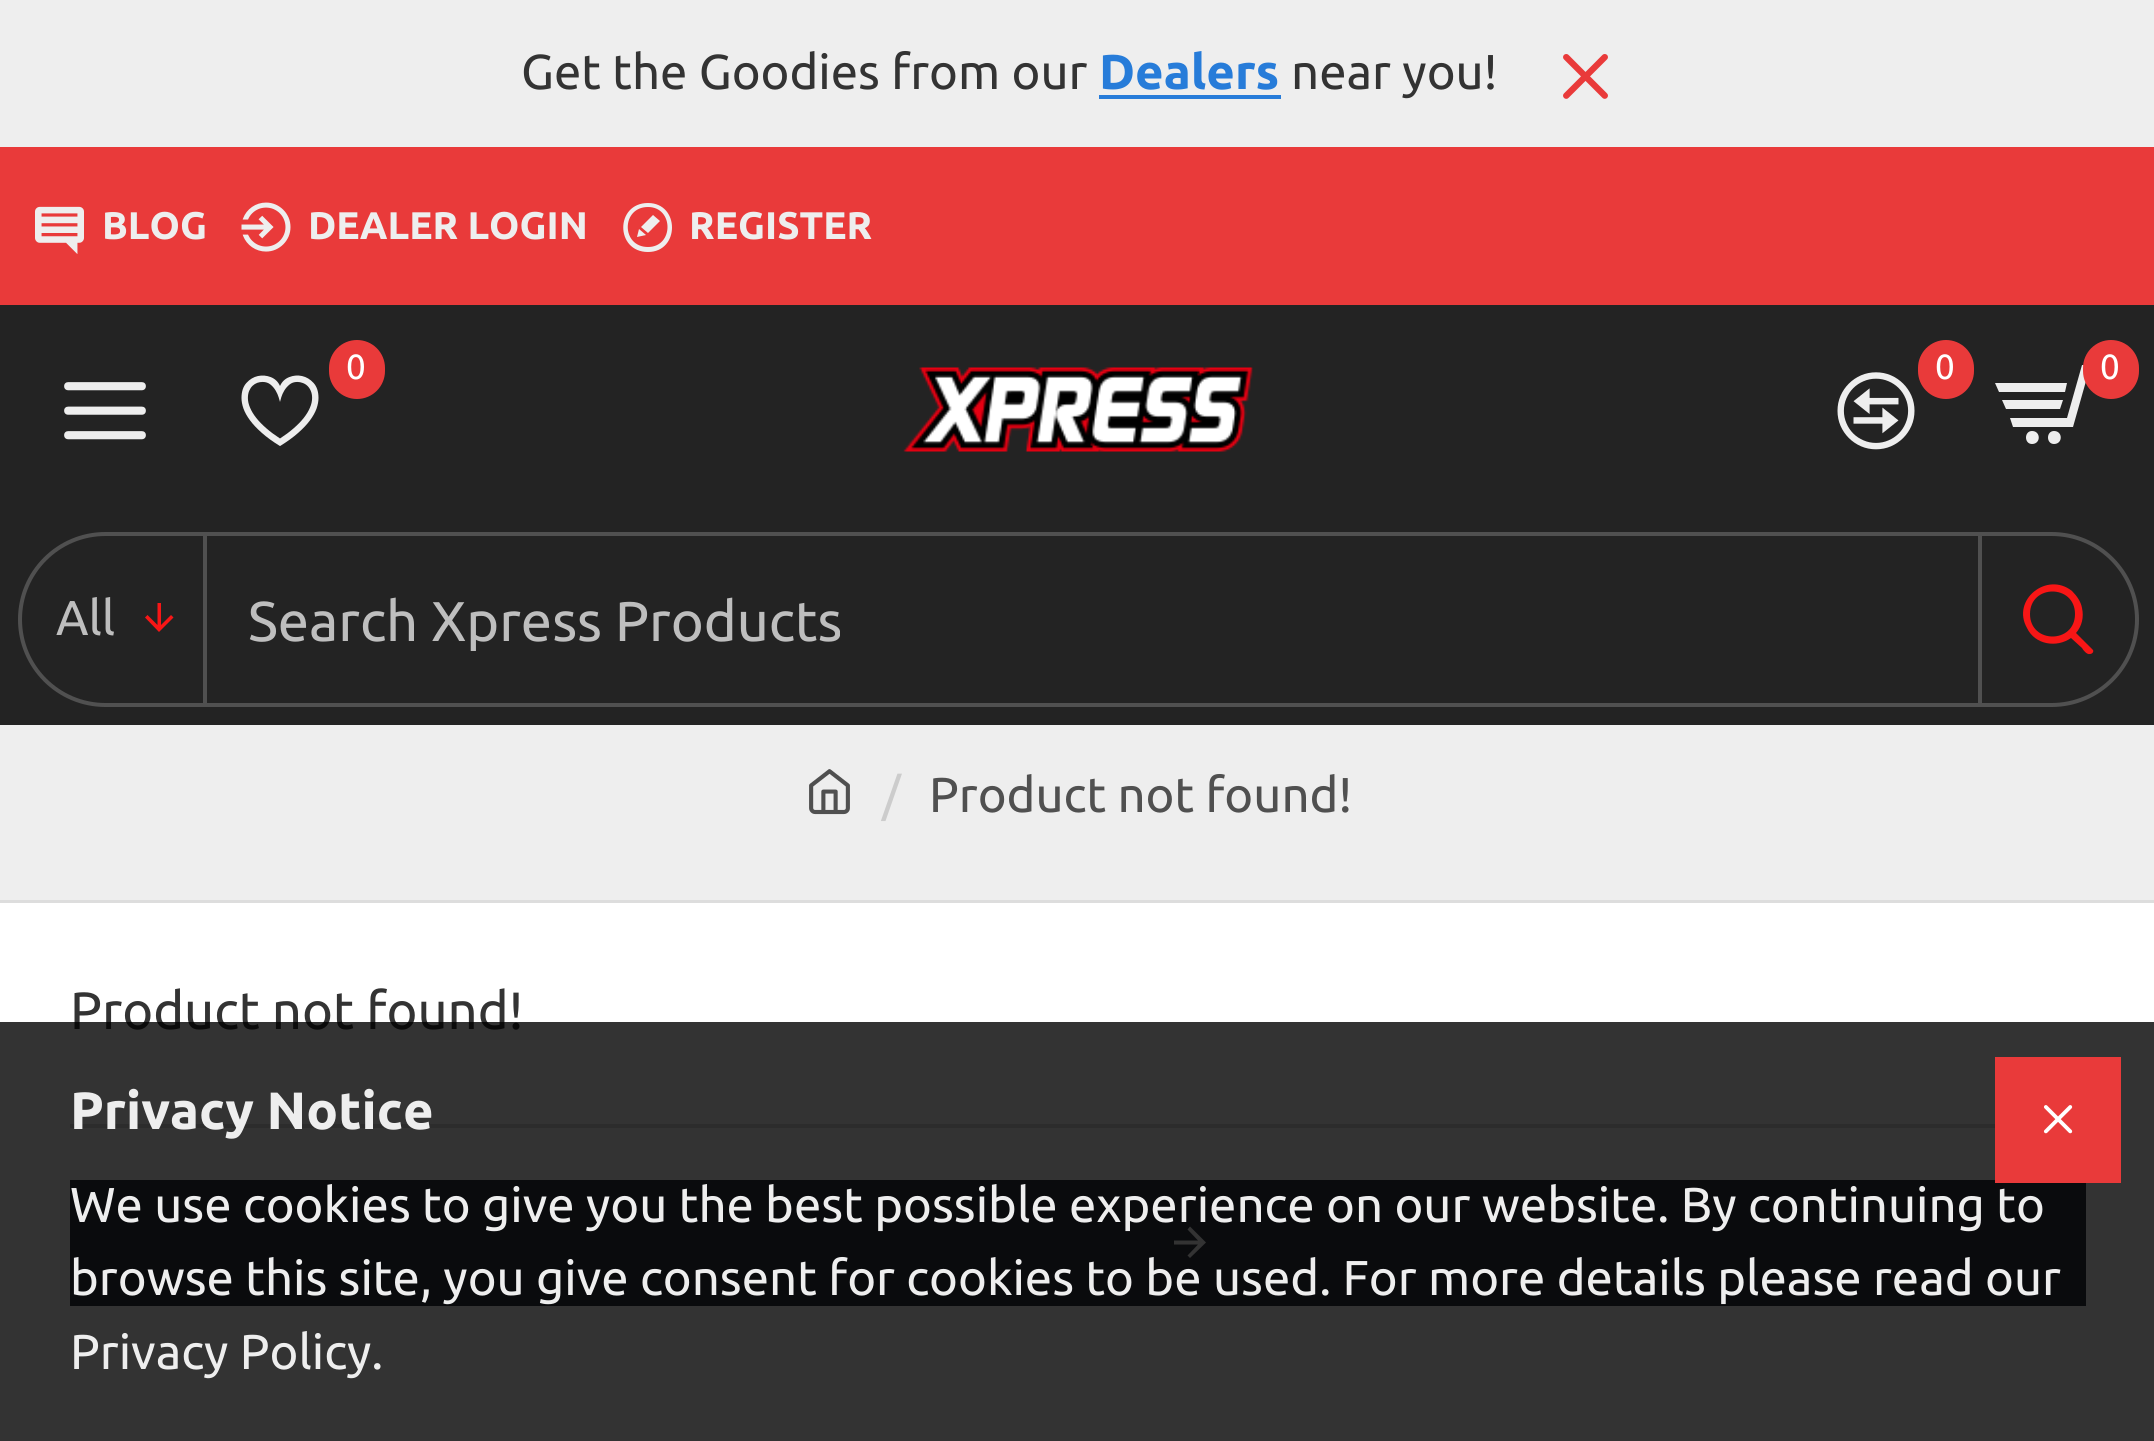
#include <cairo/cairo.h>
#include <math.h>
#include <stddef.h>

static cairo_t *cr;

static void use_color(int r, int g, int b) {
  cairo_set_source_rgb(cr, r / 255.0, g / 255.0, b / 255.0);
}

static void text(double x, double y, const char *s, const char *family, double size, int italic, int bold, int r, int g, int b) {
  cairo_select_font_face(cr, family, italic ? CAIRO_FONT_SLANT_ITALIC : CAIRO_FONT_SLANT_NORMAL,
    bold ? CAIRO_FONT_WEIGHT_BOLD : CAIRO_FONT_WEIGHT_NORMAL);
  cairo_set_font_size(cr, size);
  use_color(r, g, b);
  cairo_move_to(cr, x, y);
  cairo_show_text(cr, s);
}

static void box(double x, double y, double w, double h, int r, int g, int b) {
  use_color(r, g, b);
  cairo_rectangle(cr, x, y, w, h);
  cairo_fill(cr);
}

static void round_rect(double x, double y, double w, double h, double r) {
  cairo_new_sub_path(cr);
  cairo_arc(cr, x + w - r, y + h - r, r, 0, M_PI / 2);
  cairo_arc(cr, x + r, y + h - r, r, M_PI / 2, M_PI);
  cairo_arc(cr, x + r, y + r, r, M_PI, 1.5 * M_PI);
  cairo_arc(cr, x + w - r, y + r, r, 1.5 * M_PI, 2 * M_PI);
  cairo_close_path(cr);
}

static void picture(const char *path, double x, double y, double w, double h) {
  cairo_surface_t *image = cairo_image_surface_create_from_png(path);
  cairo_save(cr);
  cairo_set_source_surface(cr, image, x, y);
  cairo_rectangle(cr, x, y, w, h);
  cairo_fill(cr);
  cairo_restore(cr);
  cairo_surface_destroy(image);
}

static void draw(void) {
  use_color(255, 255, 255);
  cairo_paint(cr);
  box(0, 0, 2154, 147, 238, 238, 238);
  box(1099, 95, 182, 4, 39, 124, 217);
  picture("img_01.png", 1563, 54, 45, 45);
  box(0, 147, 2154, 158, 233, 58, 58);
  picture("img_02.png", 35, 206, 49, 48);
  picture("img_03.png", 241, 202, 50, 50);
  use_color(238, 238, 238);
  cairo_new_path(cr);
  cairo_move_to(cr, 648, 207);
  cairo_curve_to(cr, 674, 207, 674, 247, 648, 247);
  cairo_curve_to(cr, 621, 247, 621, 207, 648, 207);
  cairo_close_path(cr);
  cairo_move_to(cr, 648, 203);
  cairo_curve_to(cr, 615, 203, 615, 252, 648, 252);
  cairo_curve_to(cr, 680, 252, 680, 203, 648, 203);
  cairo_close_path(cr);
  cairo_move_to(cr, 639, 229);
  cairo_line_to(cr, 646, 235);
  cairo_line_to(cr, 637, 237);
  cairo_close_path(cr);
  cairo_move_to(cr, 660, 221);
  cairo_line_to(cr, 648, 233);
  cairo_line_to(cr, 641, 227);
  cairo_line_to(cr, 653, 215);
  cairo_close_path(cr);
  cairo_fill(cr);
  box(0, 305, 2154, 420, 35, 35, 35);
  picture("img_04.png", 64, 382, 82, 58);
  use_color(233, 58, 58);
  round_rect(329, 340, 56, 59, 28);
  cairo_fill(cr);
  picture("img_05.png", 241, 375, 78, 71);
  picture("img_06.png", 903, 367, 350, 85);
  round_rect(1918, 340, 56, 59, 28);
  cairo_fill(cr);
  picture("img_07.png", 1837, 372, 78, 78);
  use_color(238, 238, 238);
  cairo_new_path(cr);
  cairo_move_to(cr, 2067, 383);
  cairo_line_to(cr, 2065, 392);
  cairo_line_to(cr, 1999, 392);
  cairo_line_to(cr, 1995, 383);
  cairo_close_path(cr);
  cairo_move_to(cr, 2006, 409);
  cairo_line_to(cr, 2060, 409);
  cairo_line_to(cr, 2063, 400);
  cairo_line_to(cr, 2002, 400);
  cairo_close_path(cr);
  cairo_move_to(cr, 2032, 431);
  cairo_curve_to(cr, 2024, 431, 2024, 444, 2032, 444);
  cairo_curve_to(cr, 2041, 444, 2041, 431, 2032, 431);
  cairo_close_path(cr);
  cairo_move_to(cr, 2082, 365);
  cairo_line_to(cr, 2067, 418);
  cairo_line_to(cr, 2010, 418);
  cairo_line_to(cr, 2013, 427);
  cairo_line_to(cr, 2073, 427);
  cairo_line_to(cr, 2088, 374);
  cairo_line_to(cr, 2097, 374);
  cairo_line_to(cr, 2100, 365);
  cairo_close_path(cr);
  cairo_move_to(cr, 2054, 431);
  cairo_curve_to(cr, 2046, 431, 2046, 444, 2054, 444);
  cairo_curve_to(cr, 2063, 444, 2063, 431, 2054, 431);
  cairo_close_path(cr);
  cairo_fill(cr);
  use_color(233, 58, 58);
  round_rect(2083, 340, 56, 59, 28);
  cairo_fill(cr);
  round_rect(20, 534, 2117, 171, 85.5);
  use_color(80, 80, 80);
  cairo_set_line_width(cr, 4);
  cairo_stroke(cr);
  box(203, 536, 4, 168, 80, 80, 80);
  use_color(248, 22, 22);
  cairo_new_path(cr);
  cairo_move_to(cr, 173.5, 617.5);
  cairo_line_to(cr, 159, 632);
  cairo_line_to(cr, 145, 617.5);
  cairo_line_to(cr, 147.5, 615);
  cairo_line_to(cr, 157.5, 625);
  cairo_line_to(cr, 157.5, 603);
  cairo_line_to(cr, 161, 603);
  cairo_line_to(cr, 161, 625);
  cairo_line_to(cr, 171, 615);
  cairo_close_path(cr);
  cairo_fill(cr);
  box(1978, 536, 4, 168, 80, 80, 80);
  use_color(248, 22, 22);
  cairo_new_path(cr);
  cairo_move_to(cr, 2092, 649);
  cairo_line_to(cr, 2076, 633);
  cairo_curve_to(cr, 2082, 626, 2084, 617, 2082, 608);
  cairo_curve_to(cr, 2081, 602, 2077, 596, 2072, 591);
  cairo_curve_to(cr, 2047, 571, 2011, 600, 2027, 628);
  cairo_curve_to(cr, 2035, 645, 2057, 648, 2071, 638);
  cairo_line_to(cr, 2082, 648);
  cairo_curve_to(cr, 2083, 650, 2087, 655, 2090, 654);
  cairo_curve_to(cr, 2092, 654, 2094, 652, 2093, 650);
  cairo_close_path(cr);
  cairo_move_to(cr, 2030, 614);
  cairo_curve_to(cr, 2030, 584, 2075, 584, 2075, 614);
  cairo_curve_to(cr, 2075, 644, 2030, 644, 2030, 614);
  cairo_close_path(cr);
  cairo_fill(cr);
  box(0, 725, 2154, 175, 238, 238, 238);
  box(0, 900, 2154, 3, 221, 221, 221);
  picture("img_08.png", 809, 769, 41, 46);
  box(70, 1124, 1925, 4, 221, 221, 221);
  box(70, 1180, 2016, 126, 48, 56, 65);
  use_color(255, 255, 255);
  cairo_new_path(cr);
  cairo_move_to(cr, 1190, 1226.5);
  cairo_line_to(cr, 1206, 1242.5);
  cairo_line_to(cr, 1190, 1258);
  cairo_line_to(cr, 1187.5, 1255.5);
  cairo_line_to(cr, 1198, 1244.5);
  cairo_line_to(cr, 1174, 1244.5);
  cairo_line_to(cr, 1174, 1240.5);
  cairo_line_to(cr, 1198, 1240.5);
  cairo_line_to(cr, 1187.5, 1229.5);
  cairo_close_path(cr);
  cairo_fill(cr);
  text(521, 89, "Get the Goodies from our", "Ubuntu", 49, 0, 0, 51, 51, 51);
  text(1099, 89, "Dealers", "Ubuntu", 49, 0, 1, 39, 124, 217);
  text(1291, 89, "near you!", "Ubuntu", 49, 0, 0, 51, 51, 51);
  text(102, 239, "BLOG", "Ubuntu", 38.5, 0, 1, 238, 238, 238);
  text(308, 239, "DEALER LOGIN", "Ubuntu", 38.5, 0, 1, 238, 238, 238);
  text(689, 239, "REGISTER", "Ubuntu", 38.5, 0, 1, 238, 238, 238);
  text(346, 379, "0", "Ubuntu", 35, 0, 0, 255, 255, 255);
  text(1935, 379, "0", "Ubuntu", 35, 0, 0, 255, 255, 255);
  text(2100, 379, "0", "Ubuntu", 35, 0, 0, 255, 255, 255);
  text(56, 635, "All", "Ubuntu", 49, 0, 0, 190, 190, 190);
  cairo_save(cr);
  cairo_rectangle(cr, 249, 588, 1687, 63);
  cairo_clip(cr);
  text(248, 641, "Search Xpress Products", "Ubuntu", 56, 0, 0, 190, 190, 190);
  cairo_restore(cr);
  text(882, 812, "/", "Ubuntu", 49, 0, 0, 204, 204, 204);
  text(929, 812, "Product not found!", "Ubuntu", 49, 0, 0, 80, 80, 80);
  text(70, 1029, "Product not found!", "Ubuntu", 52.5, 0, 0, 51, 51, 51);
  cairo_set_source_rgba(cr, 0, 0, 0, 0.8);
  cairo_rectangle(cr, 0, 1022, 2154, 419);
  cairo_fill(cr);
  box(1995, 1057, 126, 126, 233, 58, 58);
  picture("img_09.png", 2043, 1105, 30, 29);
  text(70, 1129, "Privacy Notice", "Ubuntu", 52.5, 0, 1, 238, 238, 238);
  text(70, 1222, "We use cookies to give you the best possible experience on our website. By continuing to", "Ubuntu", 49, 0, 0, 238, 238, 238);
  text(70, 1295, "browse this site, you give consent for cookies to be used. For more details please read our", "Ubuntu", 49, 0, 0, 238, 238, 238);
  text(70, 1369, "Privacy Policy.", "Ubuntu", 49, 0, 0, 238, 238, 238);
}

int main(void) {
  cairo_surface_t *surface = cairo_image_surface_create(CAIRO_FORMAT_RGB24, 2154, 1441);
  cr = cairo_create(surface);
  cairo_font_options_t *options = cairo_font_options_create();
  cairo_font_options_set_hint_metrics(options, CAIRO_HINT_METRICS_OFF);
  cairo_font_options_set_hint_style(options, CAIRO_HINT_STYLE_NONE);
  cairo_set_font_options(cr, options);
  cairo_set_miter_limit(cr, 4);
  draw();
  cairo_surface_write_to_png(surface, "out.png");
  cairo_font_options_destroy(options);
  cairo_destroy(cr);
  cairo_surface_destroy(surface);
  return 0;
}
